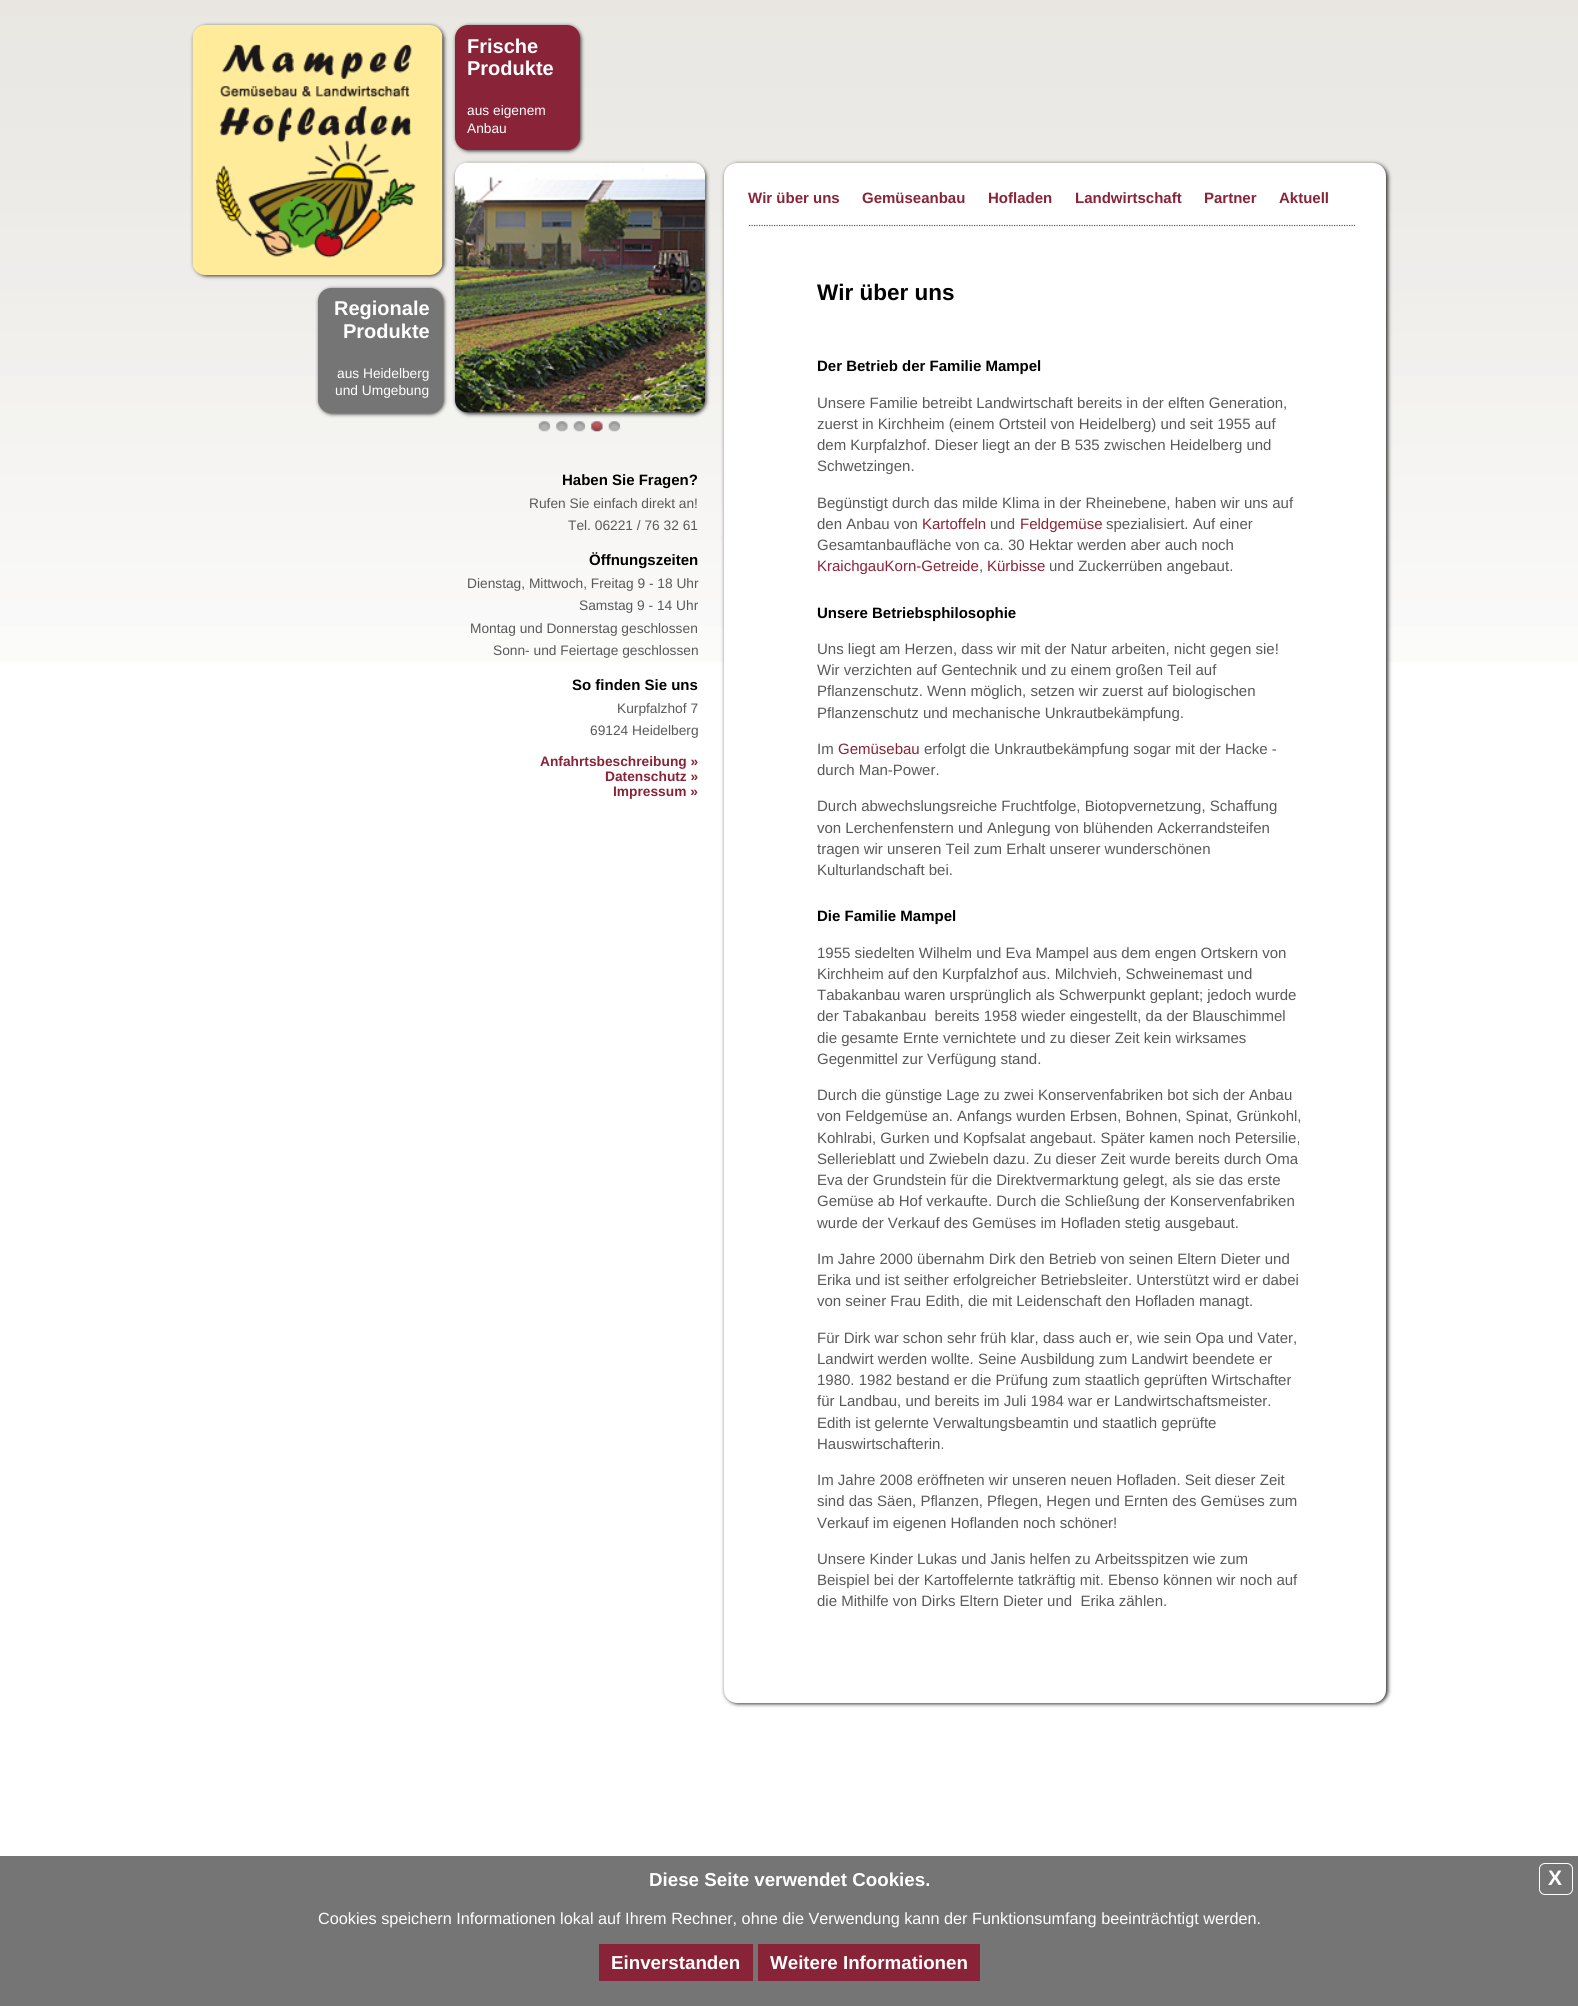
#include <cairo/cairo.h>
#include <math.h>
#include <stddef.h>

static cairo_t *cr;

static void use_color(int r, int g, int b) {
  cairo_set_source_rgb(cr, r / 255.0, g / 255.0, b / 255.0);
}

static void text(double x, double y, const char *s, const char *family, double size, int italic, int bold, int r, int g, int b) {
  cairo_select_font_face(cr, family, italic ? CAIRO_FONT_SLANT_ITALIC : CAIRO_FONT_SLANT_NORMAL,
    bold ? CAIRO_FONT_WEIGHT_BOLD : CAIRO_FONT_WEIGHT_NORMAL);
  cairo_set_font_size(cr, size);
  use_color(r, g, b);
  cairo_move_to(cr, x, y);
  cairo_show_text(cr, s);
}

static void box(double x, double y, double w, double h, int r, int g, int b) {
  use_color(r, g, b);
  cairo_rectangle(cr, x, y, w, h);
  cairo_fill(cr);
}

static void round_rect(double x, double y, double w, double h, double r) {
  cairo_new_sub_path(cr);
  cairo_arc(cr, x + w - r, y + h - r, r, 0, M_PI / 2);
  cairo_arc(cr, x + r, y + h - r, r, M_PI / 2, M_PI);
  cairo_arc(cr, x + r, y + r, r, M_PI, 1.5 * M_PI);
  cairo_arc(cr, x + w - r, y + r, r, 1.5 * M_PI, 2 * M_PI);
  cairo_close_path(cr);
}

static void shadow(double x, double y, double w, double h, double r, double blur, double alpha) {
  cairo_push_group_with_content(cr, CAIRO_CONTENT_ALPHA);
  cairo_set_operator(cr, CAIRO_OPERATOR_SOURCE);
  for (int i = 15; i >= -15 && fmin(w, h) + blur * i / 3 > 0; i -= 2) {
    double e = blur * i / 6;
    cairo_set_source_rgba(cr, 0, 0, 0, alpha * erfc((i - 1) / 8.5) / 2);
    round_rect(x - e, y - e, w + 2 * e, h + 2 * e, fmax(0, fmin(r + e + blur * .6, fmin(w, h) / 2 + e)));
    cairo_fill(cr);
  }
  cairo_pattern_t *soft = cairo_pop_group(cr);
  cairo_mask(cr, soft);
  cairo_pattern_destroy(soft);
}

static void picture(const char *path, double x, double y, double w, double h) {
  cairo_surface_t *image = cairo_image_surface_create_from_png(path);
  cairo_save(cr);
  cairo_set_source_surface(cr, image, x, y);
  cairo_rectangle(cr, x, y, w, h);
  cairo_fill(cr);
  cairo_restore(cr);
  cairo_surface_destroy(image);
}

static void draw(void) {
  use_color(255, 255, 255);
  cairo_paint(cr);
  picture("img_01.png", 0, 0, 1578, 662);
  use_color(51, 51, 51);
  shadow(194, 26, 250, 250, 13, 2, 1);
  picture("img_02.png", 192, 25, 251, 250);
  shadow(456, 26, 125, 125, 13, 2, 1);
  use_color(137, 35, 55);
  round_rect(455, 25, 125, 125, 13);
  cairo_fill(cr);
  use_color(51, 51, 51);
  shadow(456, 164, 250, 250, 13, 2, 1);
  picture("img_03.png", 455, 162, 250, 251);
  picture("img_04.png", 538, 421, 12, 11);
  picture("img_05.png", 556, 421, 12, 11);
  picture("img_04.png", 573, 421, 12, 11);
  picture("img_06.png", 591, 421, 12, 11);
  picture("img_04.png", 608, 421, 12, 11);
  shadow(319, 289, 125, 125, 13, 2, 1);
  use_color(117, 117, 117);
  round_rect(318, 288, 125, 125, 13);
  cairo_fill(cr);
  use_color(51, 51, 51);
  shadow(725, 164, 663, 1540, 13, 2, 1);
  use_color(255, 255, 255);
  round_rect(724, 163, 662, 1540, 13);
  cairo_fill(cr);
  cairo_new_path(cr);
  cairo_move_to(cr, 749, 225.5);
  cairo_line_to(cr, 1355, 225.5);
  use_color(89, 88, 90);
  cairo_set_line_width(cr, 1.2);
  cairo_set_dash(cr, (double[]){1.25, 1.25}, 2, 0);
  cairo_stroke(cr);
  box(0, 1856, 1578, 150, 117, 117, 117);
  round_rect(1539.5, 1863.5, 33, 31, 5.5);
  use_color(255, 255, 255);
  cairo_set_line_width(cr, 1);
  cairo_set_dash(cr, NULL, 0, 0);
  cairo_stroke(cr);
  box(599, 1944, 154, 37, 137, 35, 55);
  box(758, 1944, 222, 37, 137, 35, 55);
  text(467, 53, "Frische", "Liberation Sans", 20, 0, 1, 255, 255, 255);
  text(467, 75, "Produkte", "Liberation Sans", 20, 0, 1, 255, 255, 255);
  text(467, 115, "aus eigenem", "Liberation Sans", 13.75, 0, 0, 255, 255, 255);
  text(467, 133, "Anbau", "Liberation Sans", 13.75, 0, 0, 255, 255, 255);
  text(334, 315, "Regionale", "Liberation Sans", 20, 0, 1, 255, 255, 255);
  text(343, 338, "Produkte", "Liberation Sans", 20, 0, 1, 255, 255, 255);
  text(337, 378, "aus Heidelberg", "Liberation Sans", 13.75, 0, 0, 255, 255, 255);
  text(335, 395, "und Umgebung", "Liberation Sans", 13.75, 0, 0, 255, 255, 255);
  text(562, 485, "Haben Sie Fragen?", "Liberation Sans", 15, 0, 1, 0, 0, 0);
  text(529, 508, "Rufen Sie einfach direkt an!", "Liberation Sans", 13.75, 0, 0, 89, 88, 90);
  text(568, 530, "Tel. 06221 / 76 32 61", "Liberation Sans", 13.75, 0, 0, 89, 88, 90);
  text(589, 565, "Öffnungszeiten", "Liberation Sans", 15, 0, 1, 0, 0, 0);
  text(467, 588, "Dienstag, Mittwoch, Freitag 9 - 18 Uhr", "Liberation Sans", 13.75, 0, 0, 89, 88, 90);
  text(579, 610, "Samstag 9 - 14 Uhr", "Liberation Sans", 13.75, 0, 0, 89, 88, 90);
  text(470, 633, "Montag und Donnerstag geschlossen", "Liberation Sans", 13.75, 0, 0, 89, 88, 90);
  text(493, 655, "Sonn- und Feiertage geschlossen", "Liberation Sans", 13.75, 0, 0, 89, 88, 90);
  text(572, 690, "So finden Sie uns", "Liberation Sans", 15, 0, 1, 0, 0, 0);
  text(617, 713, "Kurpfalzhof 7", "Liberation Sans", 13.75, 0, 0, 89, 88, 90);
  text(590, 735, "69124 Heidelberg", "Liberation Sans", 13.75, 0, 0, 89, 88, 90);
  text(540, 766, "Anfahrtsbeschreibung »", "Liberation Sans", 13.75, 0, 1, 137, 35, 55);
  text(605, 781, "Datenschutz »", "Liberation Sans", 13.75, 0, 1, 137, 35, 55);
  text(613, 796, "Impressum »", "Liberation Sans", 13.75, 0, 1, 137, 35, 55);
  text(748, 203, "Wir über uns", "Liberation Sans", 15, 0, 1, 137, 35, 55);
  text(862, 203, "Gemüseanbau", "Liberation Sans", 15, 0, 1, 137, 35, 55);
  text(988, 203, "Hofladen", "Liberation Sans", 15, 0, 1, 137, 35, 55);
  text(1075, 203, "Landwirtschaft", "Liberation Sans", 15, 0, 1, 137, 35, 55);
  text(1204, 203, "Partner", "Liberation Sans", 15, 0, 1, 137, 35, 55);
  text(1279, 203, "Aktuell", "Liberation Sans", 15, 0, 1, 137, 35, 55);
  text(817, 300, "Wir über uns", "Liberation Sans", 22.5, 0, 1, 0, 0, 0);
  text(817, 371, "Der Betrieb der Familie Mampel", "Liberation Sans", 15, 0, 1, 0, 0, 0);
  text(817, 408, "Unsere Familie betreibt Landwirtschaft bereits in der elften Generation,", "Liberation Sans", 15, 0, 0, 89, 88, 90);
  text(817, 429, "zuerst in Kirchheim (einem Ortsteil von Heidelberg) und seit 1955 auf", "Liberation Sans", 15, 0, 0, 89, 88, 90);
  text(817, 450, "dem Kurpfalzhof. Dieser liegt an der B 535 zwischen Heidelberg und", "Liberation Sans", 15, 0, 0, 89, 88, 90);
  text(817, 471, "Schwetzingen.", "Liberation Sans", 15, 0, 0, 89, 88, 90);
  text(817, 508, "Begünstigt durch das milde Klima in der Rheinebene, haben wir uns auf", "Liberation Sans", 15, 0, 0, 89, 88, 90);
  text(817, 529, "den Anbau von", "Liberation Sans", 15, 0, 0, 89, 88, 90);
  text(922, 529, "Kartoffeln", "Liberation Sans", 15, 0, 0, 137, 35, 55);
  text(990, 529, "und", "Liberation Sans", 15, 0, 0, 89, 88, 90);
  text(1020, 529, "Feldgemüse", "Liberation Sans", 15, 0, 0, 137, 35, 55);
  text(1106, 529, "spezialisiert. Auf einer", "Liberation Sans", 15, 0, 0, 89, 88, 90);
  text(817, 550, "Gesamtanbaufläche von ca. 30 Hektar werden aber auch noch", "Liberation Sans", 15, 0, 0, 89, 88, 90);
  text(817, 571, "KraichgauKorn-Getreide", "Liberation Sans", 15, 0, 0, 137, 35, 55);
  text(979, 571, ",", "Liberation Sans", 15, 0, 0, 89, 88, 90);
  text(987, 571, "Kürbisse", "Liberation Sans", 15, 0, 0, 137, 35, 55);
  text(1049, 571, "und Zuckerrüben angebaut.", "Liberation Sans", 15, 0, 0, 89, 88, 90);
  text(817, 618, "Unsere Betriebsphilosophie", "Liberation Sans", 15, 0, 1, 0, 0, 0);
  text(817, 654, "Uns liegt am Herzen, dass wir mit der Natur arbeiten, nicht gegen sie!", "Liberation Sans", 15, 0, 0, 89, 88, 90);
  text(817, 675, "Wir verzichten auf Gentechnik und zu einem großen Teil auf", "Liberation Sans", 15, 0, 0, 89, 88, 90);
  text(817, 696, "Pflanzenschutz. Wenn möglich, setzen wir zuerst auf biologischen", "Liberation Sans", 15, 0, 0, 89, 88, 90);
  text(817, 718, "Pflanzenschutz und mechanische Unkrautbekämpfung.", "Liberation Sans", 15, 0, 0, 89, 88, 90);
  text(817, 754, "Im", "Liberation Sans", 15, 0, 0, 89, 88, 90);
  text(838, 754, "Gemüsebau", "Liberation Sans", 15, 0, 0, 137, 35, 55);
  text(924, 754, "erfolgt die Unkrautbekämpfung sogar mit der Hacke -", "Liberation Sans", 15, 0, 0, 89, 88, 90);
  text(817, 775, "durch Man-Power.", "Liberation Sans", 15, 0, 0, 89, 88, 90);
  text(817, 811, "Durch abwechslungsreiche Fruchtfolge, Biotopvernetzung, Schaffung", "Liberation Sans", 15, 0, 0, 89, 88, 90);
  text(817, 833, "von Lerchenfenstern und Anlegung von blühenden Ackerrandsteifen", "Liberation Sans", 15, 0, 0, 89, 88, 90);
  text(817, 854, "tragen wir unseren Teil zum Erhalt unserer wunderschönen", "Liberation Sans", 15, 0, 0, 89, 88, 90);
  text(817, 875, "Kulturlandschaft bei.", "Liberation Sans", 15, 0, 0, 89, 88, 90);
  text(817, 921, "Die Familie Mampel", "Liberation Sans", 15, 0, 1, 0, 0, 0);
  text(817, 958, "1955 siedelten Wilhelm und Eva Mampel aus dem engen Ortskern von", "Liberation Sans", 15, 0, 0, 89, 88, 90);
  text(817, 979, "Kirchheim auf den Kurpfalzhof aus. Milchvieh, Schweinemast und", "Liberation Sans", 15, 0, 0, 89, 88, 90);
  text(817, 1000, "Tabakanbau waren ursprünglich als Schwerpunkt geplant; jedoch wurde", "Liberation Sans", 15, 0, 0, 89, 88, 90);
  text(817, 1021, "der Tabakanbau  bereits 1958 wieder eingestellt, da der Blauschimmel", "Liberation Sans", 15, 0, 0, 89, 88, 90);
  text(817, 1043, "die gesamte Ernte vernichtete und zu dieser Zeit kein wirksames", "Liberation Sans", 15, 0, 0, 89, 88, 90);
  text(817, 1064, "Gegenmittel zur Verfügung stand.", "Liberation Sans", 15, 0, 0, 89, 88, 90);
  text(817, 1100, "Durch die günstige Lage zu zwei Konservenfabriken bot sich der Anbau", "Liberation Sans", 15, 0, 0, 89, 88, 90);
  text(817, 1121, "von Feldgemüse an. Anfangs wurden Erbsen, Bohnen, Spinat, Grünkohl,", "Liberation Sans", 15, 0, 0, 89, 88, 90);
  text(817, 1143, "Kohlrabi, Gurken und Kopfsalat angebaut. Später kamen noch Petersilie,", "Liberation Sans", 15, 0, 0, 89, 88, 90);
  text(817, 1164, "Sellerieblatt und Zwiebeln dazu. Zu dieser Zeit wurde bereits durch Oma", "Liberation Sans", 15, 0, 0, 89, 88, 90);
  text(817, 1185, "Eva der Grundstein für die Direktvermarktung gelegt, als sie das erste", "Liberation Sans", 15, 0, 0, 89, 88, 90);
  text(817, 1206, "Gemüse ab Hof verkaufte. Durch die Schließung der Konservenfabriken", "Liberation Sans", 15, 0, 0, 89, 88, 90);
  text(817, 1228, "wurde der Verkauf des Gemüses im Hofladen stetig ausgebaut.", "Liberation Sans", 15, 0, 0, 89, 88, 90);
  text(817, 1264, "Im Jahre 2000 übernahm Dirk den Betrieb von seinen Eltern Dieter und", "Liberation Sans", 15, 0, 0, 89, 88, 90);
  text(817, 1285, "Erika und ist seither erfolgreicher Betriebsleiter. Unterstützt wird er dabei", "Liberation Sans", 15, 0, 0, 89, 88, 90);
  text(817, 1306, "von seiner Frau Edith, die mit Leidenschaft den Hofladen managt.", "Liberation Sans", 15, 0, 0, 89, 88, 90);
  text(817, 1343, "Für Dirk war schon sehr früh klar, dass auch er, wie sein Opa und Vater,", "Liberation Sans", 15, 0, 0, 89, 88, 90);
  text(817, 1364, "Landwirt werden wollte. Seine Ausbildung zum Landwirt beendete er", "Liberation Sans", 15, 0, 0, 89, 88, 90);
  text(817, 1385, "1980. 1982 bestand er die Prüfung zum staatlich geprüften Wirtschafter", "Liberation Sans", 15, 0, 0, 89, 88, 90);
  text(817, 1406, "für Landbau, und bereits im Juli 1984 war er Landwirtschaftsmeister.", "Liberation Sans", 15, 0, 0, 89, 88, 90);
  text(817, 1428, "Edith ist gelernte Verwaltungsbeamtin und staatlich geprüfte", "Liberation Sans", 15, 0, 0, 89, 88, 90);
  text(817, 1449, "Hauswirtschafterin.", "Liberation Sans", 15, 0, 0, 89, 88, 90);
  text(817, 1485, "Im Jahre 2008 eröffneten wir unseren neuen Hofladen. Seit dieser Zeit", "Liberation Sans", 15, 0, 0, 89, 88, 90);
  text(817, 1506, "sind das Säen, Pflanzen, Pflegen, Hegen und Ernten des Gemüses zum", "Liberation Sans", 15, 0, 0, 89, 88, 90);
  text(817, 1528, "Verkauf im eigenen Hoflanden noch schöner!", "Liberation Sans", 15, 0, 0, 89, 88, 90);
  text(817, 1564, "Unsere Kinder Lukas und Janis helfen zu Arbeitsspitzen wie zum", "Liberation Sans", 15, 0, 0, 89, 88, 90);
  text(817, 1585, "Beispiel bei der Kartoffelernte tatkräftig mit. Ebenso können wir noch auf", "Liberation Sans", 15, 0, 0, 89, 88, 90);
  text(817, 1606, "die Mithilfe von Dirks Eltern Dieter und  Erika zählen.", "Liberation Sans", 15, 0, 0, 89, 88, 90);
  text(649, 1886, "Diese Seite verwendet Cookies.", "Liberation Sans", 18.75, 0, 1, 255, 255, 255);
  text(1548, 1885, "X", "Liberation Sans", 21, 0, 1, 255, 255, 255);
  text(318, 1924, "Cookies speichern Informationen lokal auf Ihrem Rechner, ohne die Verwendung kann der Funktionsumfang beeinträchtigt werden.", "Liberation Sans", 16.25, 0, 0, 255, 255, 255);
  text(611, 1969, "Einverstanden", "Liberation Sans", 18.75, 0, 1, 255, 255, 255);
  text(770, 1969, "Weitere Informationen", "Liberation Sans", 18.75, 0, 1, 255, 255, 255);
}

int main(void) {
  cairo_surface_t *surface = cairo_image_surface_create(CAIRO_FORMAT_RGB24, 1578, 2006);
  cr = cairo_create(surface);
  cairo_font_options_t *options = cairo_font_options_create();
  cairo_font_options_set_hint_metrics(options, CAIRO_HINT_METRICS_OFF);
  cairo_font_options_set_hint_style(options, CAIRO_HINT_STYLE_NONE);
  cairo_set_font_options(cr, options);
  cairo_set_miter_limit(cr, 4);
  draw();
  cairo_surface_write_to_png(surface, "out.png");
  cairo_font_options_destroy(options);
  cairo_destroy(cr);
  cairo_surface_destroy(surface);
  return 0;
}
